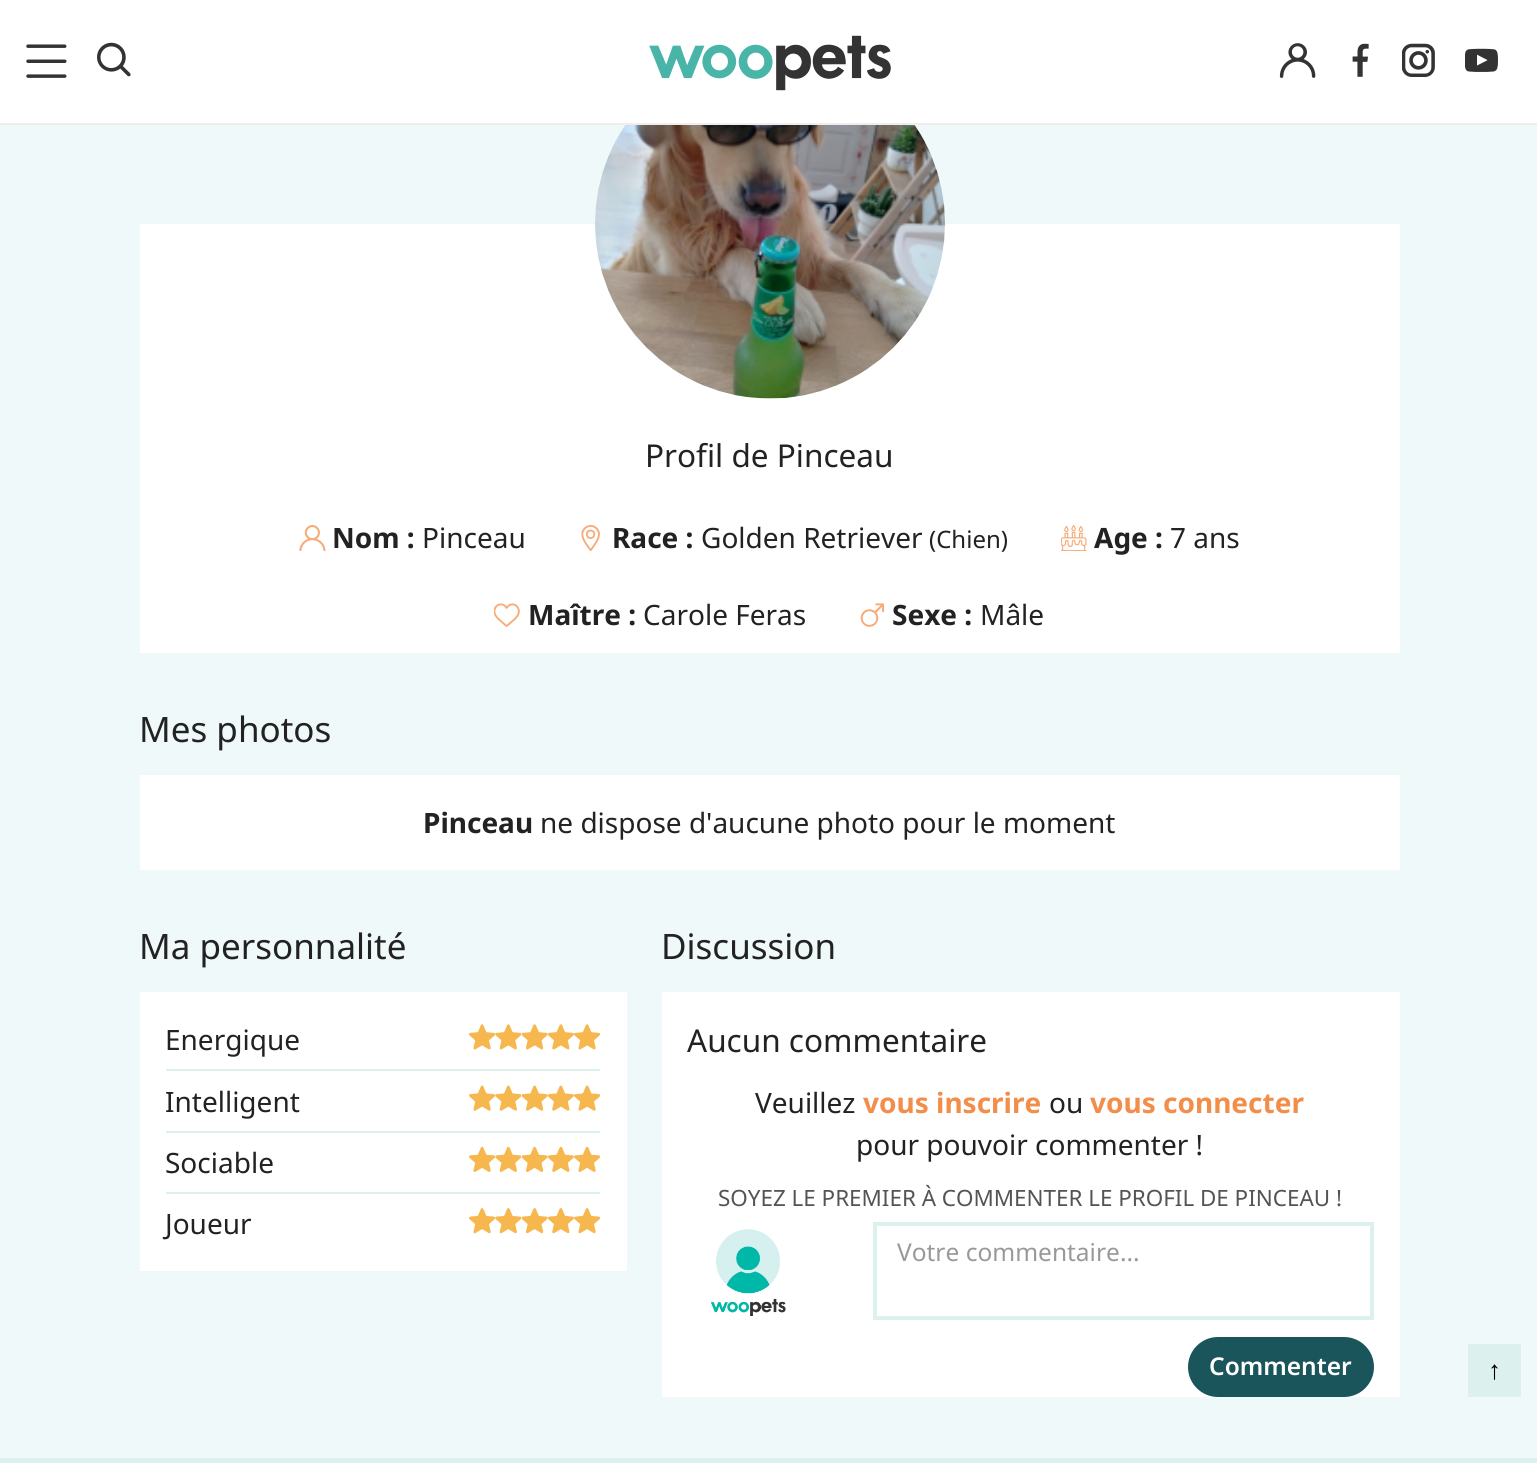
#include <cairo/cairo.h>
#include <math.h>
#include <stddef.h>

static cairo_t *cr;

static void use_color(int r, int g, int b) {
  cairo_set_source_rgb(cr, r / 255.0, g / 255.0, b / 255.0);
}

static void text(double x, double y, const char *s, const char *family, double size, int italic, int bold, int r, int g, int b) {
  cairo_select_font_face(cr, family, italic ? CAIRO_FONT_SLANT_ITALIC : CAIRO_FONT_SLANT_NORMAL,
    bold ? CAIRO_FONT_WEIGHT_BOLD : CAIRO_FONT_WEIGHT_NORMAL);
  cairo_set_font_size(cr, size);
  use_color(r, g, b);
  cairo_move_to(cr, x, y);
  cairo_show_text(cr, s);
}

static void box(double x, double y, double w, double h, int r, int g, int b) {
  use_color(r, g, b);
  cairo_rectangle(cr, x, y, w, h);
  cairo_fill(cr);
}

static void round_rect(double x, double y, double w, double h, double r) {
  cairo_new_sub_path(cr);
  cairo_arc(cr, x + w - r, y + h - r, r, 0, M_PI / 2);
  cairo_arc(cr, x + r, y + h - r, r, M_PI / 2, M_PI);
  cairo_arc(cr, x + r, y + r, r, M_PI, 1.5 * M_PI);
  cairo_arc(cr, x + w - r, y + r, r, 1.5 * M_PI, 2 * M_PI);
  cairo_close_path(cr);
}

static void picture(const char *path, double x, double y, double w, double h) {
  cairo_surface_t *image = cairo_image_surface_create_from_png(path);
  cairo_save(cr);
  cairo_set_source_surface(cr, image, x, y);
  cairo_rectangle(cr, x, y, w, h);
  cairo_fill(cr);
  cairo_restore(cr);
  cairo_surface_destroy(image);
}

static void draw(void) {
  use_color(240, 249, 249);
  cairo_paint(cr);
  box(0, 0, 1537, 123, 255, 255, 255);
  box(0, 123, 1537, 2, 240, 238, 237);
  picture("img_01.png", 26, 44, 41, 34);
  picture("img_02.png", 97, 42, 34, 35);
  picture("img_03.png", 649, 35, 242, 56);
  picture("img_04.png", 1279, 43, 37, 35);
  picture("img_05.png", 1352, 43, 17, 34);
  picture("img_06.png", 1402, 43, 33, 34);
  picture("img_07.png", 1465, 48, 33, 24);
  box(140, 224, 1260, 429, 255, 255, 255);
  picture("img_08.png", 595, 125, 350, 274);
  picture("img_09.png", 299, 525, 27, 26);
  picture("img_10.png", 581, 525, 19, 26);
  picture("img_11.png", 1061, 525, 26, 26);
  picture("img_12.png", 494, 603, 26, 24);
  picture("img_13.png", 860, 603, 25, 24);
  box(140, 775, 1260, 95, 255, 255, 255);
  box(140, 992, 487, 279, 255, 255, 255);
  box(166, 1069, 434, 2, 220, 240, 237);
  picture("img_14.png", 469, 1024, 26, 26);
  picture("img_15.png", 495, 1024, 27, 26);
  picture("img_16.png", 522, 1024, 26, 26);
  picture("img_17.png", 548, 1024, 26, 26);
  picture("img_14.png", 574, 1024, 26, 26);
  box(166, 1131, 434, 2, 220, 240, 237);
  picture("img_18.png", 469, 1085, 26, 26);
  picture("img_19.png", 495, 1085, 27, 26);
  picture("img_20.png", 522, 1085, 26, 26);
  picture("img_21.png", 548, 1085, 26, 26);
  picture("img_18.png", 574, 1085, 26, 26);
  box(166, 1192, 434, 2, 220, 240, 237);
  picture("img_22.png", 469, 1146, 26, 26);
  picture("img_23.png", 495, 1146, 27, 26);
  picture("img_24.png", 522, 1146, 26, 26);
  picture("img_25.png", 548, 1146, 26, 26);
  picture("img_22.png", 574, 1146, 26, 26);
  picture("img_26.png", 469, 1208, 26, 26);
  picture("img_27.png", 495, 1208, 27, 26);
  picture("img_28.png", 522, 1208, 26, 26);
  picture("img_29.png", 548, 1208, 26, 26);
  picture("img_26.png", 574, 1208, 26, 26);
  box(662, 992, 738, 405, 255, 255, 255);
  picture("img_30.png", 711, 1229, 75, 87);
  cairo_rectangle(cr, 875, 1224, 497, 94);
  use_color(220, 240, 237);
  cairo_set_line_width(cr, 4);
  cairo_stroke(cr);
  use_color(27, 85, 92);
  round_rect(1188, 1337, 186, 60, 30);
  cairo_fill(cr);
  box(1468, 1344, 53, 53, 220, 240, 237);
  box(0, 1463, 1537, 21, 255, 255, 255);
  box(0, 1458, 1537, 5, 220, 240, 237);
  text(645, 467, "Profil de Pinceau", "Noto Sans", 31.5, 0, 0, 34, 34, 34);
  text(332, 548, "Nom :", "Noto Sans", 28, 0, 1, 34, 34, 34);
  text(422, 548, "Pinceau", "Noto Sans", 28, 0, 0, 34, 34, 34);
  text(612, 548, "Race :", "Noto Sans", 28, 0, 1, 34, 34, 34);
  text(701, 548, "Golden Retriever", "Noto Sans", 28, 0, 0, 34, 34, 34);
  text(929, 548, "(Chien)", "Noto Sans", 24, 0, 0, 34, 34, 34);
  text(1094, 548, "Age :", "Noto Sans", 28, 0, 1, 34, 34, 34);
  text(1170, 548, "7 ans", "Noto Sans", 28, 0, 0, 34, 34, 34);
  text(528, 625, "Maître :", "Noto Sans", 28, 0, 1, 34, 34, 34);
  text(643, 625, "Carole Feras", "Noto Sans", 28, 0, 0, 34, 34, 34);
  text(892, 625, "Sexe :", "Noto Sans", 28, 0, 1, 34, 34, 34);
  text(980, 625, "Mâle", "Noto Sans", 28, 0, 0, 34, 34, 34);
  text(139, 742, "Mes photos", "Noto Sans", 35, 0, 0, 34, 34, 34);
  text(423, 833, "Pinceau", "Noto Sans", 28, 0, 1, 34, 34, 34);
  text(540, 833, "ne dispose d'aucune photo pour le moment", "Noto Sans", 28, 0, 0, 34, 34, 34);
  text(139, 959, "Ma personnalité", "Noto Sans", 35, 0, 0, 34, 34, 34);
  text(165, 1050, "Energique", "Noto Sans", 28, 0, 0, 34, 34, 34);
  text(165, 1112, "Intelligent", "Noto Sans", 28, 0, 0, 34, 34, 34);
  text(165, 1173, "Sociable", "Noto Sans", 28, 0, 0, 34, 34, 34);
  text(165, 1234, "Joueur", "Noto Sans", 28, 0, 0, 34, 34, 34);
  text(661, 959, "Discussion", "Noto Sans", 35, 0, 0, 34, 34, 34);
  text(687, 1052, "Aucun commentaire", "Noto Sans", 31.5, 0, 0, 34, 34, 34);
  text(755, 1113, "Veuillez", "Noto Sans", 28, 0, 0, 34, 34, 34);
  text(863, 1113, "vous inscrire", "Noto Sans", 28, 0, 1, 242, 141, 74);
  text(1049, 1113, "ou", "Noto Sans", 28, 0, 0, 34, 34, 34);
  text(1090, 1113, "vous connecter", "Noto Sans", 28, 0, 1, 242, 141, 74);
  text(856, 1155, "pour pouvoir commenter !", "Noto Sans", 28, 0, 0, 34, 34, 34);
  text(718, 1206, "SOYEZ LE PREMIER À COMMENTER LE PROFIL DE PINCEAU !", "Noto Sans", 22.4, 0, 0, 84, 84, 84);
  text(897, 1261, "Votre commentaire...", "Noto Sans", 24.5, 0, 0, 153, 153, 153);
  text(1209, 1375, "Commenter", "Noto Sans SemiBold", 24.5, 0, 0, 255, 255, 255);
  text(1488, 1379, "↑", "Liberation Sans", 26, 0, 0, 0, 0, 0);
}

int main(void) {
  cairo_surface_t *surface = cairo_image_surface_create(CAIRO_FORMAT_RGB24, 1537, 1484);
  cr = cairo_create(surface);
  cairo_font_options_t *options = cairo_font_options_create();
  cairo_font_options_set_hint_metrics(options, CAIRO_HINT_METRICS_OFF);
  cairo_font_options_set_hint_style(options, CAIRO_HINT_STYLE_NONE);
  cairo_set_font_options(cr, options);
  cairo_set_miter_limit(cr, 4);
  draw();
  cairo_surface_write_to_png(surface, "out.png");
  cairo_font_options_destroy(options);
  cairo_destroy(cr);
  cairo_surface_destroy(surface);
  return 0;
}
